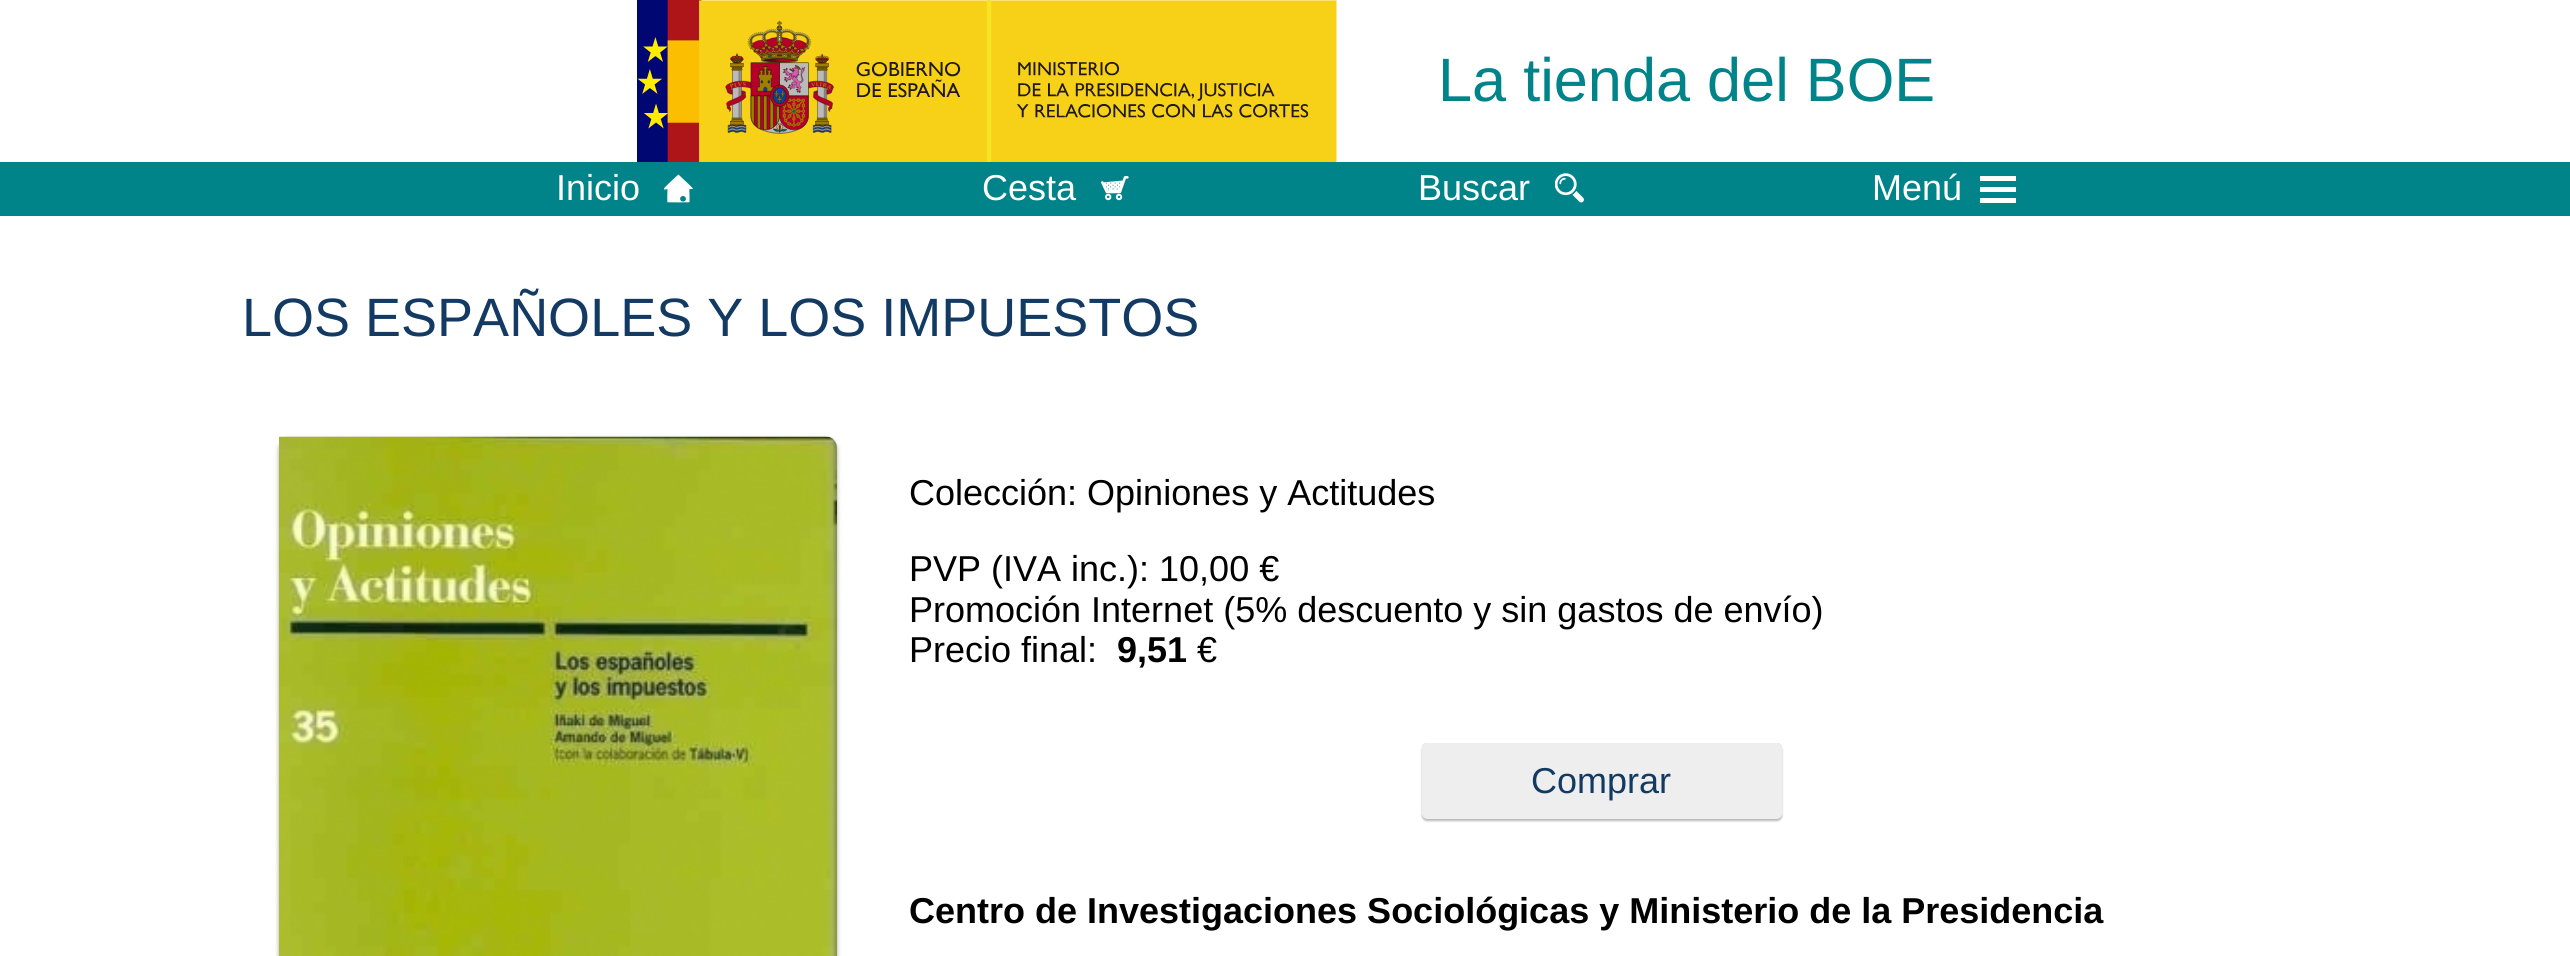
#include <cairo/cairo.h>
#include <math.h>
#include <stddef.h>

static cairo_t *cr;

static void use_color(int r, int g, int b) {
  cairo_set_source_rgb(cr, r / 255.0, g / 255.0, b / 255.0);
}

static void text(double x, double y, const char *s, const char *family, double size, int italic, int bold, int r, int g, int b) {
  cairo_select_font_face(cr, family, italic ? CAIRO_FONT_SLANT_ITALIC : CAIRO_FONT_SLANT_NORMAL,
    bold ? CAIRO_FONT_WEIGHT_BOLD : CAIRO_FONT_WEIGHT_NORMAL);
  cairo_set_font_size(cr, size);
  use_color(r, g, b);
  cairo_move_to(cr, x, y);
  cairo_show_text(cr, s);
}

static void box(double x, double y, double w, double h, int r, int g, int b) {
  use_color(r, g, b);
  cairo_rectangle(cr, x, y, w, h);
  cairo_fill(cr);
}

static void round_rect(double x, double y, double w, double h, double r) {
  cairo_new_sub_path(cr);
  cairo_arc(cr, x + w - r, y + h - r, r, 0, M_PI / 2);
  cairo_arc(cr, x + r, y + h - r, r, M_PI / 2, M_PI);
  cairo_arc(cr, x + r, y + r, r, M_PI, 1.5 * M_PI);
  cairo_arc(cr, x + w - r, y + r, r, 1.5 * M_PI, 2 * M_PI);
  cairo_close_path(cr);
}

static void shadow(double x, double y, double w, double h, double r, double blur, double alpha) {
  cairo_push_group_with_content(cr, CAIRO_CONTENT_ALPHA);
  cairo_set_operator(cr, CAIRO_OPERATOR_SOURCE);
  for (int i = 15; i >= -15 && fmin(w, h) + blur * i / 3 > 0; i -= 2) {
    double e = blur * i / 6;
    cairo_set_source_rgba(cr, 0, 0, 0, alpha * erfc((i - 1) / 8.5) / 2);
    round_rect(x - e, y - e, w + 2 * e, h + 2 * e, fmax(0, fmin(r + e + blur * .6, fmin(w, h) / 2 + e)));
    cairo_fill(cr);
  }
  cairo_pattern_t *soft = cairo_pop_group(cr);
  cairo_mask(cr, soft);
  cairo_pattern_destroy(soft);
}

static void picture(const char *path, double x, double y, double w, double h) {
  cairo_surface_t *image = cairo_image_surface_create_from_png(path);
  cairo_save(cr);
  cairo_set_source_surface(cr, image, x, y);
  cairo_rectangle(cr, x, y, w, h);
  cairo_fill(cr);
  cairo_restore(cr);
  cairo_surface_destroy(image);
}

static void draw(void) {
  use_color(255, 255, 255);
  cairo_paint(cr);
  picture("img_01.png", 637, 0, 700, 162);
  box(0, 162, 2570, 54, 0, 132, 137);
  picture("img_02.png", 664, 174, 29, 29);
  picture("img_03.png", 1101, 176, 28, 25);
  picture("img_04.png", 1555, 173, 29, 30);
  box(1980, 176, 36, 5, 255, 255, 255);
  box(1980, 187, 36, 5, 255, 255, 255);
  box(1980, 198, 36, 5, 255, 255, 255);
  use_color(0, 0, 0);
  shadow(279, 439, 558, 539, 11, 3.5, 0.12);
  shadow(279, 439, 558, 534, 11, 2, 0.24);
  picture("img_05.png", 279, 436, 558, 520);
  round_rect(1422.25, 743.25, 359.5, 75.5, 4.75);
  use_color(184, 184, 184);
  cairo_set_line_width(cr, 0.5);
  cairo_stroke(cr);
  use_color(0, 0, 0);
  shadow(1422, 745, 360, 76, 5, 1, 0.28);
  use_color(238, 238, 238);
  round_rect(1422, 743, 360, 76, 5);
  cairo_fill(cr);
  text(1438, 101, "La tienda del BOE", "Liberation Sans", 61.25, 0, 0, 0, 132, 137);
  text(556, 200, "Inicio", "Liberation Sans", 36, 0, 0, 255, 255, 255);
  text(982, 200, "Cesta", "Liberation Sans", 36, 0, 0, 255, 255, 255);
  text(1418, 200, "Buscar", "Liberation Sans", 36, 0, 0, 255, 255, 255);
  text(1872, 200, "Menú", "Liberation Sans", 36, 0, 0, 255, 255, 255);
  text(242, 336, "LOS ESPAÑOLES Y LOS IMPUESTOS", "Liberation Sans", 54, 0, 0, 18, 58, 99);
  text(909, 505, "Colección: Opiniones y Actitudes", "Liberation Sans", 36, 0, 0, 0, 0, 0);
  text(909, 581, "PVP (IVA inc.): 10,00 €", "Liberation Sans", 36, 0, 0, 0, 0, 0);
  text(909, 622, "Promoción Internet (5% descuento y sin gastos de envío)", "Liberation Sans", 36, 0, 0, 0, 0, 0);
  text(909, 662, "Precio final:", "Liberation Sans", 36, 0, 0, 0, 0, 0);
  text(1117, 662, "9,51", "Liberation Sans", 36, 0, 1, 0, 0, 0);
  text(1197, 662, "€", "Liberation Sans", 36, 0, 0, 0, 0, 0);
  text(1531, 793, "Comprar", "Liberation Sans", 36, 0, 0, 18, 58, 99);
  text(909, 923, "Centro de Investigaciones Sociológicas y Ministerio de la Presidencia", "Liberation Sans", 36, 0, 1, 0, 0, 0);
}

int main(void) {
  cairo_surface_t *surface = cairo_image_surface_create(CAIRO_FORMAT_RGB24, 2570, 956);
  cr = cairo_create(surface);
  cairo_font_options_t *options = cairo_font_options_create();
  cairo_font_options_set_hint_metrics(options, CAIRO_HINT_METRICS_OFF);
  cairo_font_options_set_hint_style(options, CAIRO_HINT_STYLE_NONE);
  cairo_set_font_options(cr, options);
  cairo_set_miter_limit(cr, 4);
  draw();
  cairo_surface_write_to_png(surface, "out.png");
  cairo_font_options_destroy(options);
  cairo_destroy(cr);
  cairo_surface_destroy(surface);
  return 0;
}
